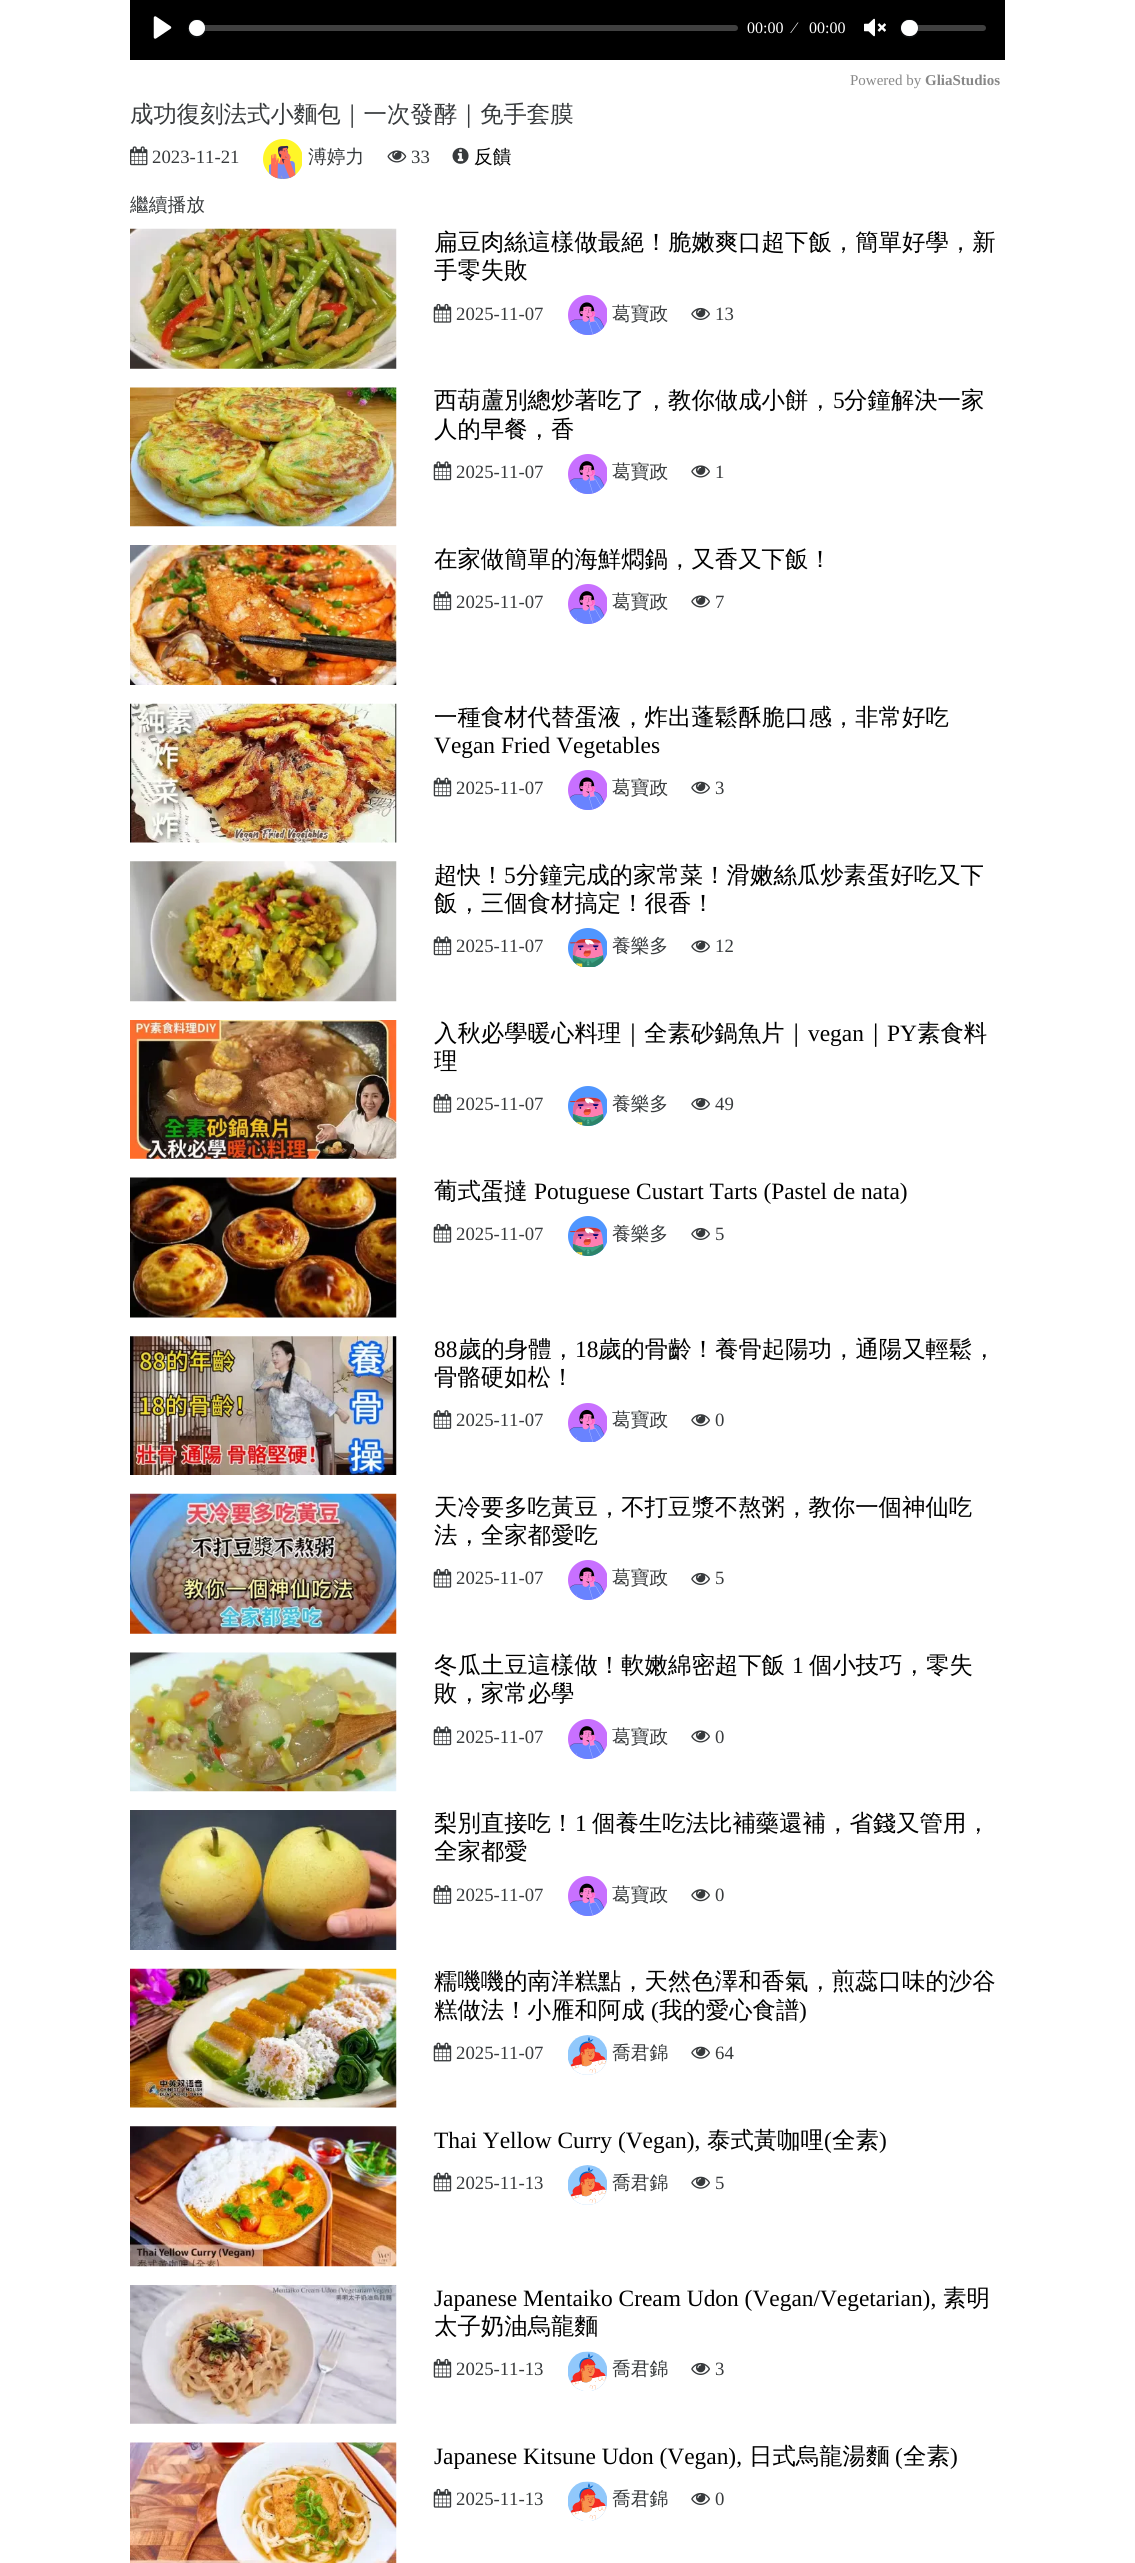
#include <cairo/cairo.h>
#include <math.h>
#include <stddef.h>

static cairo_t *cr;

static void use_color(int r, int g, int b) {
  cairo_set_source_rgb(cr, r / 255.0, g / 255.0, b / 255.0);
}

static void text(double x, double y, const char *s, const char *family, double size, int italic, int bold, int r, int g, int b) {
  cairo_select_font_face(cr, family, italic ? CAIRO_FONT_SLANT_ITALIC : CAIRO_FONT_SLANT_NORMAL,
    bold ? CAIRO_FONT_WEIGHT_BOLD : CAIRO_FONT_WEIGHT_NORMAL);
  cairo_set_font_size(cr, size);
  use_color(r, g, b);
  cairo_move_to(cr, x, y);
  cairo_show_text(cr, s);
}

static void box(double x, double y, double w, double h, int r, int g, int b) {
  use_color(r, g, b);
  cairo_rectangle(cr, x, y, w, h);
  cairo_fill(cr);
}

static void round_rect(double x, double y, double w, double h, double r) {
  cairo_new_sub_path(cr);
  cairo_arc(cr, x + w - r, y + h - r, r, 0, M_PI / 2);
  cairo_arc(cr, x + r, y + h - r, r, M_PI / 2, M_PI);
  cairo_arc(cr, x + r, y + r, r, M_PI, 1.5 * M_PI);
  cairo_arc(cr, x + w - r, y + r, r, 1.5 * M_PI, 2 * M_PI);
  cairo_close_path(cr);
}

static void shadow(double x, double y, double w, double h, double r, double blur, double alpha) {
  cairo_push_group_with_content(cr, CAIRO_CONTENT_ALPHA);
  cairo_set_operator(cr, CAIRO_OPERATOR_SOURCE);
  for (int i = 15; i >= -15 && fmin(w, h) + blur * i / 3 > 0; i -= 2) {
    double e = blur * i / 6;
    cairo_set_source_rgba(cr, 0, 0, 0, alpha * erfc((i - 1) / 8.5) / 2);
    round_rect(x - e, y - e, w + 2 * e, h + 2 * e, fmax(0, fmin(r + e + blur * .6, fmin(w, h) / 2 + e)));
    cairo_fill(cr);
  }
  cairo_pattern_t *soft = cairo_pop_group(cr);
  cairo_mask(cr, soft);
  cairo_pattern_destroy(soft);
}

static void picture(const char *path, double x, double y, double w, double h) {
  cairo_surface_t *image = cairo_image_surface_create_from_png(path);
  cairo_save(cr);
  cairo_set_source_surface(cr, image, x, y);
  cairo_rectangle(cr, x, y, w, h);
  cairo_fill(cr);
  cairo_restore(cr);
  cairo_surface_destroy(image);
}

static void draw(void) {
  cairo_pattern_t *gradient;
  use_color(255, 255, 255);
  cairo_paint(cr);
  box(130, 0, 875, 60, 0, 0, 0);
  picture("img_01.png", 187, 19, 732, 19);
  gradient = cairo_pattern_create_linear(568, -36, 568, 60);
  cairo_pattern_add_color_stop_rgba(gradient, 0, 0, 0, 0, 0);
  cairo_pattern_add_color_stop_rgba(gradient, 1, 0, 0, 0, 0.75);
  cairo_set_source(cr, gradient);
  cairo_pattern_destroy(gradient);
  cairo_rectangle(cr, 188, 19, 730, 19);
  cairo_fill(cr);
  picture("img_02.png", 153, 16, 19, 23);
  cairo_set_source_rgba(cr, 1, 1, 1, 0.25);
  round_rect(189, 25, 549, 6, 3);
  cairo_fill(cr);
  round_rect(188.5, 19.5, 17, 18, 8.5);
  cairo_set_source_rgba(cr, 0.137, 0.157, 0.184, 0.2);
  cairo_set_line_width(cr, 1);
  cairo_stroke(cr);
  use_color(35, 40, 47);
  shadow(189, 21, 16, 17, 8, 0.5, 0.15);
  use_color(255, 255, 255);
  cairo_arc(cr, 197, 28, 8, 0, 2 * M_PI);
  cairo_fill(cr);
  picture("img_03.png", 864, 18, 22, 19);
  cairo_set_source_rgba(cr, 1, 1, 1, 0.25);
  round_rect(901, 25, 85, 6, 3);
  cairo_fill(cr);
  cairo_arc(cr, 909.5, 28.5, 9, 0, 2 * M_PI);
  cairo_set_source_rgba(cr, 0.137, 0.157, 0.184, 0.2);
  cairo_stroke(cr);
  use_color(35, 40, 47);
  shadow(901, 21, 17, 17, 8.5, 0.5, 0.15);
  use_color(255, 255, 255);
  round_rect(901, 20, 17, 16, 8);
  cairo_fill(cr);
  picture("img_04.png", 130, 146, 18, 20);
  picture("img_05.png", 263, 139, 39, 40);
  picture("img_06.png", 387, 150, 20, 13);
  picture("img_07.png", 452, 147, 17, 17);
  picture("img_08.png", 130, 228, 267, 141);
  picture("img_09.png", 433, 303, 19, 20);
  picture("img_10.png", 568, 295, 39, 40);
  picture("img_11.png", 691, 307, 19, 13);
  picture("img_12.png", 130, 387, 267, 140);
  picture("img_13.png", 433, 461, 19, 20);
  picture("img_14.png", 568, 454, 39, 40);
  picture("img_15.png", 691, 465, 19, 13);
  picture("img_16.png", 130, 545, 267, 140);
  picture("img_13.png", 433, 591, 19, 20);
  picture("img_14.png", 568, 584, 39, 40);
  picture("img_15.png", 691, 595, 19, 13);
  picture("img_17.png", 130, 703, 267, 140);
  picture("img_18.png", 433, 777, 19, 20);
  picture("img_10.png", 568, 770, 39, 40);
  picture("img_19.png", 691, 781, 19, 13);
  picture("img_20.png", 130, 861, 267, 141);
  picture("img_13.png", 433, 936, 19, 20);
  picture("img_21.png", 568, 928, 39, 39);
  picture("img_15.png", 691, 940, 19, 13);
  picture("img_22.png", 130, 1020, 267, 139);
  picture("img_09.png", 433, 1093, 19, 20);
  picture("img_23.png", 568, 1086, 39, 40);
  picture("img_11.png", 691, 1097, 19, 13);
  picture("img_24.png", 130, 1177, 267, 141);
  picture("img_09.png", 433, 1223, 19, 20);
  picture("img_23.png", 568, 1216, 39, 40);
  picture("img_11.png", 691, 1227, 19, 13);
  picture("img_25.png", 130, 1336, 267, 139);
  picture("img_26.png", 433, 1410, 19, 19);
  picture("img_27.png", 568, 1403, 39, 39);
  picture("img_28.png", 691, 1414, 19, 13);
  picture("img_29.png", 130, 1493, 267, 141);
  picture("img_09.png", 433, 1568, 19, 20);
  picture("img_10.png", 568, 1560, 39, 40);
  picture("img_11.png", 691, 1572, 19, 13);
  picture("img_30.png", 130, 1652, 267, 140);
  picture("img_13.png", 433, 1726, 19, 20);
  picture("img_14.png", 568, 1719, 39, 40);
  picture("img_15.png", 691, 1730, 19, 13);
  picture("img_31.png", 130, 1810, 267, 140);
  picture("img_26.png", 433, 1885, 19, 19);
  picture("img_32.png", 568, 1876, 39, 40);
  picture("img_28.png", 691, 1889, 19, 13);
  picture("img_33.png", 130, 1968, 267, 140);
  picture("img_18.png", 433, 2042, 19, 20);
  picture("img_34.png", 568, 2035, 39, 40);
  picture("img_19.png", 691, 2046, 19, 13);
  picture("img_35.png", 130, 2126, 267, 141);
  picture("img_18.png", 433, 2172, 19, 20);
  picture("img_34.png", 568, 2165, 39, 40);
  picture("img_19.png", 691, 2176, 19, 13);
  picture("img_36.png", 130, 2285, 267, 139);
  picture("img_09.png", 433, 2358, 19, 20);
  picture("img_37.png", 568, 2351, 39, 40);
  picture("img_11.png", 691, 2362, 19, 13);
  picture("img_38.png", 130, 2442, 267, 121);
  picture("img_09.png", 433, 2488, 19, 20);
  picture("img_37.png", 568, 2481, 39, 40);
  picture("img_11.png", 691, 2492, 19, 13);
  text(747, 33, "00:00", "Liberation Serif", 16, 0, 0, 255, 255, 255);
  text(793, 33, "⁄", "Liberation Serif", 16, 0, 0, 255, 255, 255);
  text(809, 33, "00:00", "Liberation Serif", 16, 0, 0, 255, 255, 255);
  text(850, 85, "Powered by", "Liberation Serif", 15, 0, 0, 136, 136, 136);
  text(925, 85, "GliaStudios", "Liberation Serif", 15, 0, 1, 136, 136, 136);
  text(130, 122, "成功復刻法式小麵包｜一次發酵｜免手套膜", "WenQuanYi Zen Hei Medium", 23.4, 0, 0, 55, 58, 60);
  text(152, 163, "2023-11-21", "Liberation Serif", 18.75, 0, 0, 55, 58, 60);
  text(308, 163, "溥婷力", "WenQuanYi Zen Hei Medium", 18.75, 0, 0, 55, 58, 60);
  text(411, 163, "33", "Liberation Serif", 18.75, 0, 0, 55, 58, 60);
  text(474, 163, "反饋", "WenQuanYi Zen Hei Medium", 18.75, 0, 0, 0, 0, 0);
  text(130, 211, "繼續播放", "WenQuanYi Zen Hei Medium", 18.75, 0, 0, 55, 58, 60);
  text(434, 250, "扁豆肉絲這樣做最絕！脆嫩爽口超下飯，簡單好學，新", "WenQuanYi Zen Hei Medium", 23.4, 0, 0, 0, 0, 0);
  text(434, 278, "手零失敗", "WenQuanYi Zen Hei Medium", 23.4, 0, 0, 0, 0, 0);
  text(456, 320, "2025-11-07", "Liberation Serif", 18.75, 0, 0, 55, 58, 60);
  text(612, 320, "葛寶政", "WenQuanYi Zen Hei Medium", 18.75, 0, 0, 55, 58, 60);
  text(715, 320, "13", "Liberation Serif", 18.75, 0, 0, 55, 58, 60);
  text(434, 408, "西葫蘆別總炒著吃了，教你做成小餅，", "WenQuanYi Zen Hei Medium", 23.4, 0, 0, 0, 0, 0);
  text(833, 408, "5", "Liberation Serif", 23.4, 0, 0, 0, 0, 0);
  text(844, 408, "分鐘解決一家", "WenQuanYi Zen Hei Medium", 23.4, 0, 0, 0, 0, 0);
  text(434, 437, "人的早餐，香", "WenQuanYi Zen Hei Medium", 23.4, 0, 0, 0, 0, 0);
  text(456, 478, "2025-11-07", "Liberation Serif", 18.75, 0, 0, 55, 58, 60);
  text(612, 478, "葛寶政", "WenQuanYi Zen Hei Medium", 18.75, 0, 0, 55, 58, 60);
  text(715, 478, "1", "Liberation Serif", 18.75, 0, 0, 55, 58, 60);
  text(434, 567, "在家做簡單的海鮮燜鍋，又香又下飯！", "WenQuanYi Zen Hei Medium", 23.4, 0, 0, 0, 0, 0);
  text(456, 608, "2025-11-07", "Liberation Serif", 18.75, 0, 0, 55, 58, 60);
  text(612, 608, "葛寶政", "WenQuanYi Zen Hei Medium", 18.75, 0, 0, 55, 58, 60);
  text(715, 608, "7", "Liberation Serif", 18.75, 0, 0, 55, 58, 60);
  text(434, 725, "一種食材代替蛋液，炸出蓬鬆酥脆口感，非常好吃", "WenQuanYi Zen Hei Medium", 23.4, 0, 0, 0, 0, 0);
  text(434, 753, "Vegan Fried Vegetables", "Liberation Serif", 23.4, 0, 0, 0, 0, 0);
  text(456, 794, "2025-11-07", "Liberation Serif", 18.75, 0, 0, 55, 58, 60);
  text(612, 794, "葛寶政", "WenQuanYi Zen Hei Medium", 18.75, 0, 0, 55, 58, 60);
  text(715, 794, "3", "Liberation Serif", 18.75, 0, 0, 55, 58, 60);
  text(434, 883, "超快！", "WenQuanYi Zen Hei Medium", 23.4, 0, 0, 0, 0, 0);
  text(504, 883, "5", "Liberation Serif", 23.4, 0, 0, 0, 0, 0);
  text(516, 883, "分鐘完成的家常菜！滑嫩絲瓜炒素蛋好吃又下", "WenQuanYi Zen Hei Medium", 23.4, 0, 0, 0, 0, 0);
  text(434, 911, "飯，三個食材搞定！很香！", "WenQuanYi Zen Hei Medium", 23.4, 0, 0, 0, 0, 0);
  text(456, 952, "2025-11-07", "Liberation Serif", 18.75, 0, 0, 55, 58, 60);
  text(612, 952, "養樂多", "WenQuanYi Zen Hei Medium", 18.75, 0, 0, 55, 58, 60);
  text(715, 952, "12", "Liberation Serif", 18.75, 0, 0, 55, 58, 60);
  text(434, 1041, "入秋必學暖心料理｜全素砂鍋魚片｜", "WenQuanYi Zen Hei Medium", 23.4, 0, 0, 0, 0, 0);
  text(808, 1041, "vegan", "Liberation Serif", 23.4, 0, 0, 0, 0, 0);
  text(864, 1041, "｜", "WenQuanYi Zen Hei Medium", 23.4, 0, 0, 0, 0, 0);
  text(887, 1041, "PY", "Liberation Serif", 23.4, 0, 0, 0, 0, 0);
  text(917, 1041, "素食料", "WenQuanYi Zen Hei Medium", 23.4, 0, 0, 0, 0, 0);
  text(434, 1069, "理", "WenQuanYi Zen Hei Medium", 23.4, 0, 0, 0, 0, 0);
  text(456, 1110, "2025-11-07", "Liberation Serif", 18.75, 0, 0, 55, 58, 60);
  text(612, 1110, "養樂多", "WenQuanYi Zen Hei Medium", 18.75, 0, 0, 55, 58, 60);
  text(715, 1110, "49", "Liberation Serif", 18.75, 0, 0, 55, 58, 60);
  text(434, 1199, "葡式蛋撻", "WenQuanYi Zen Hei Medium", 23.4, 0, 0, 0, 0, 0);
  text(534, 1199, "Potuguese Custart Tarts (Pastel de nata)", "Liberation Serif", 23.4, 0, 0, 0, 0, 0);
  text(456, 1240, "2025-11-07", "Liberation Serif", 18.75, 0, 0, 55, 58, 60);
  text(612, 1240, "養樂多", "WenQuanYi Zen Hei Medium", 18.75, 0, 0, 55, 58, 60);
  text(715, 1240, "5", "Liberation Serif", 18.75, 0, 0, 55, 58, 60);
  text(434, 1357, "88", "Liberation Serif", 23.4, 0, 0, 0, 0, 0);
  text(458, 1357, "歲的身體，", "WenQuanYi Zen Hei Medium", 23.4, 0, 0, 0, 0, 0);
  text(575, 1357, "18", "Liberation Serif", 23.4, 0, 0, 0, 0, 0);
  text(598, 1357, "歲的骨齡！養骨起陽功，通陽又輕鬆，", "WenQuanYi Zen Hei Medium", 23.4, 0, 0, 0, 0, 0);
  text(434, 1385, "骨骼硬如松！", "WenQuanYi Zen Hei Medium", 23.4, 0, 0, 0, 0, 0);
  text(456, 1426, "2025-11-07", "Liberation Serif", 18.75, 0, 0, 55, 58, 60);
  text(612, 1426, "葛寶政", "WenQuanYi Zen Hei Medium", 18.75, 0, 0, 55, 58, 60);
  text(715, 1426, "0", "Liberation Serif", 18.75, 0, 0, 55, 58, 60);
  text(434, 1515, "天冷要多吃黃豆，不打豆漿不熬粥，教你一個神仙吃", "WenQuanYi Zen Hei Medium", 23.4, 0, 0, 0, 0, 0);
  text(434, 1543, "法，全家都愛吃", "WenQuanYi Zen Hei Medium", 23.4, 0, 0, 0, 0, 0);
  text(456, 1584, "2025-11-07", "Liberation Serif", 18.75, 0, 0, 55, 58, 60);
  text(612, 1584, "葛寶政", "WenQuanYi Zen Hei Medium", 18.75, 0, 0, 55, 58, 60);
  text(715, 1584, "5", "Liberation Serif", 18.75, 0, 0, 55, 58, 60);
  text(434, 1673, "冬瓜土豆這樣做！軟嫩綿密超下飯", "WenQuanYi Zen Hei Medium", 23.4, 0, 0, 0, 0, 0);
  text(792, 1673, "1", "Liberation Serif", 23.4, 0, 0, 0, 0, 0);
  text(809, 1673, "個小技巧，零失", "WenQuanYi Zen Hei Medium", 23.4, 0, 0, 0, 0, 0);
  text(434, 1701, "敗，家常必學", "WenQuanYi Zen Hei Medium", 23.4, 0, 0, 0, 0, 0);
  text(456, 1743, "2025-11-07", "Liberation Serif", 18.75, 0, 0, 55, 58, 60);
  text(612, 1743, "葛寶政", "WenQuanYi Zen Hei Medium", 18.75, 0, 0, 55, 58, 60);
  text(715, 1743, "0", "Liberation Serif", 18.75, 0, 0, 55, 58, 60);
  text(434, 1831, "梨別直接吃！", "WenQuanYi Zen Hei Medium", 23.4, 0, 0, 0, 0, 0);
  text(575, 1831, "1", "Liberation Serif", 23.4, 0, 0, 0, 0, 0);
  text(592, 1831, "個養生吃法比補藥還補，省錢又管用，", "WenQuanYi Zen Hei Medium", 23.4, 0, 0, 0, 0, 0);
  text(434, 1859, "全家都愛", "WenQuanYi Zen Hei Medium", 23.4, 0, 0, 0, 0, 0);
  text(456, 1901, "2025-11-07", "Liberation Serif", 18.75, 0, 0, 55, 58, 60);
  text(612, 1901, "葛寶政", "WenQuanYi Zen Hei Medium", 18.75, 0, 0, 55, 58, 60);
  text(715, 1901, "0", "Liberation Serif", 18.75, 0, 0, 55, 58, 60);
  text(434, 1989, "糯嘰嘰的南洋糕點，天然色澤和香氣，煎蕊口味的沙谷", "WenQuanYi Zen Hei Medium", 23.4, 0, 0, 0, 0, 0);
  text(434, 2018, "糕做法！小雁和阿成", "WenQuanYi Zen Hei Medium", 23.4, 0, 0, 0, 0, 0);
  text(651, 2018, "(", "Liberation Serif", 23.4, 0, 0, 0, 0, 0);
  text(659, 2018, "我的愛心食譜", "WenQuanYi Zen Hei Medium", 23.4, 0, 0, 0, 0, 0);
  text(799, 2018, ")", "Liberation Serif", 23.4, 0, 0, 0, 0, 0);
  text(456, 2059, "2025-11-07", "Liberation Serif", 18.75, 0, 0, 55, 58, 60);
  text(612, 2059, "喬君錦", "WenQuanYi Zen Hei Medium", 18.75, 0, 0, 55, 58, 60);
  text(715, 2059, "64", "Liberation Serif", 18.75, 0, 0, 55, 58, 60);
  text(434, 2148, "Thai Yellow Curry (Vegan),", "Liberation Serif", 23.4, 0, 0, 0, 0, 0);
  text(707, 2148, "泰式黃咖哩", "WenQuanYi Zen Hei Medium", 23.4, 0, 0, 0, 0, 0);
  text(824, 2148, "(", "Liberation Serif", 23.4, 0, 0, 0, 0, 0);
  text(832, 2148, "全素", "WenQuanYi Zen Hei Medium", 23.4, 0, 0, 0, 0, 0);
  text(879, 2148, ")", "Liberation Serif", 23.4, 0, 0, 0, 0, 0);
  text(456, 2189, "2025-11-13", "Liberation Serif", 18.75, 0, 0, 55, 58, 60);
  text(612, 2189, "喬君錦", "WenQuanYi Zen Hei Medium", 18.75, 0, 0, 55, 58, 60);
  text(715, 2189, "5", "Liberation Serif", 18.75, 0, 0, 55, 58, 60);
  text(434, 2306, "Japanese Mentaiko Cream Udon (Vegan/Vegetarian),", "Liberation Serif", 23.4, 0, 0, 0, 0, 0);
  text(943, 2306, "素明", "WenQuanYi Zen Hei Medium", 23.4, 0, 0, 0, 0, 0);
  text(434, 2334, "太子奶油烏龍麵", "WenQuanYi Zen Hei Medium", 23.4, 0, 0, 0, 0, 0);
  text(456, 2375, "2025-11-13", "Liberation Serif", 18.75, 0, 0, 55, 58, 60);
  text(612, 2375, "喬君錦", "WenQuanYi Zen Hei Medium", 18.75, 0, 0, 55, 58, 60);
  text(715, 2375, "3", "Liberation Serif", 18.75, 0, 0, 55, 58, 60);
  text(434, 2464, "Japanese Kitsune Udon (Vegan),", "Liberation Serif", 23.4, 0, 0, 0, 0, 0);
  text(749, 2464, "日式烏龍湯麵", "WenQuanYi Zen Hei Medium", 23.4, 0, 0, 0, 0, 0);
  text(895, 2464, "(", "Liberation Serif", 23.4, 0, 0, 0, 0, 0);
  text(903, 2464, "全素", "WenQuanYi Zen Hei Medium", 23.4, 0, 0, 0, 0, 0);
  text(950, 2464, ")", "Liberation Serif", 23.4, 0, 0, 0, 0, 0);
  text(456, 2505, "2025-11-13", "Liberation Serif", 18.75, 0, 0, 55, 58, 60);
  text(612, 2505, "喬君錦", "WenQuanYi Zen Hei Medium", 18.75, 0, 0, 55, 58, 60);
  text(715, 2505, "0", "Liberation Serif", 18.75, 0, 0, 55, 58, 60);
}

int main(void) {
  cairo_surface_t *surface = cairo_image_surface_create(CAIRO_FORMAT_RGB24, 1135, 2563);
  cr = cairo_create(surface);
  cairo_font_options_t *options = cairo_font_options_create();
  cairo_font_options_set_hint_metrics(options, CAIRO_HINT_METRICS_OFF);
  cairo_font_options_set_hint_style(options, CAIRO_HINT_STYLE_NONE);
  cairo_set_font_options(cr, options);
  cairo_set_miter_limit(cr, 4);
  draw();
  cairo_surface_write_to_png(surface, "out.png");
  cairo_font_options_destroy(options);
  cairo_destroy(cr);
  cairo_surface_destroy(surface);
  return 0;
}
